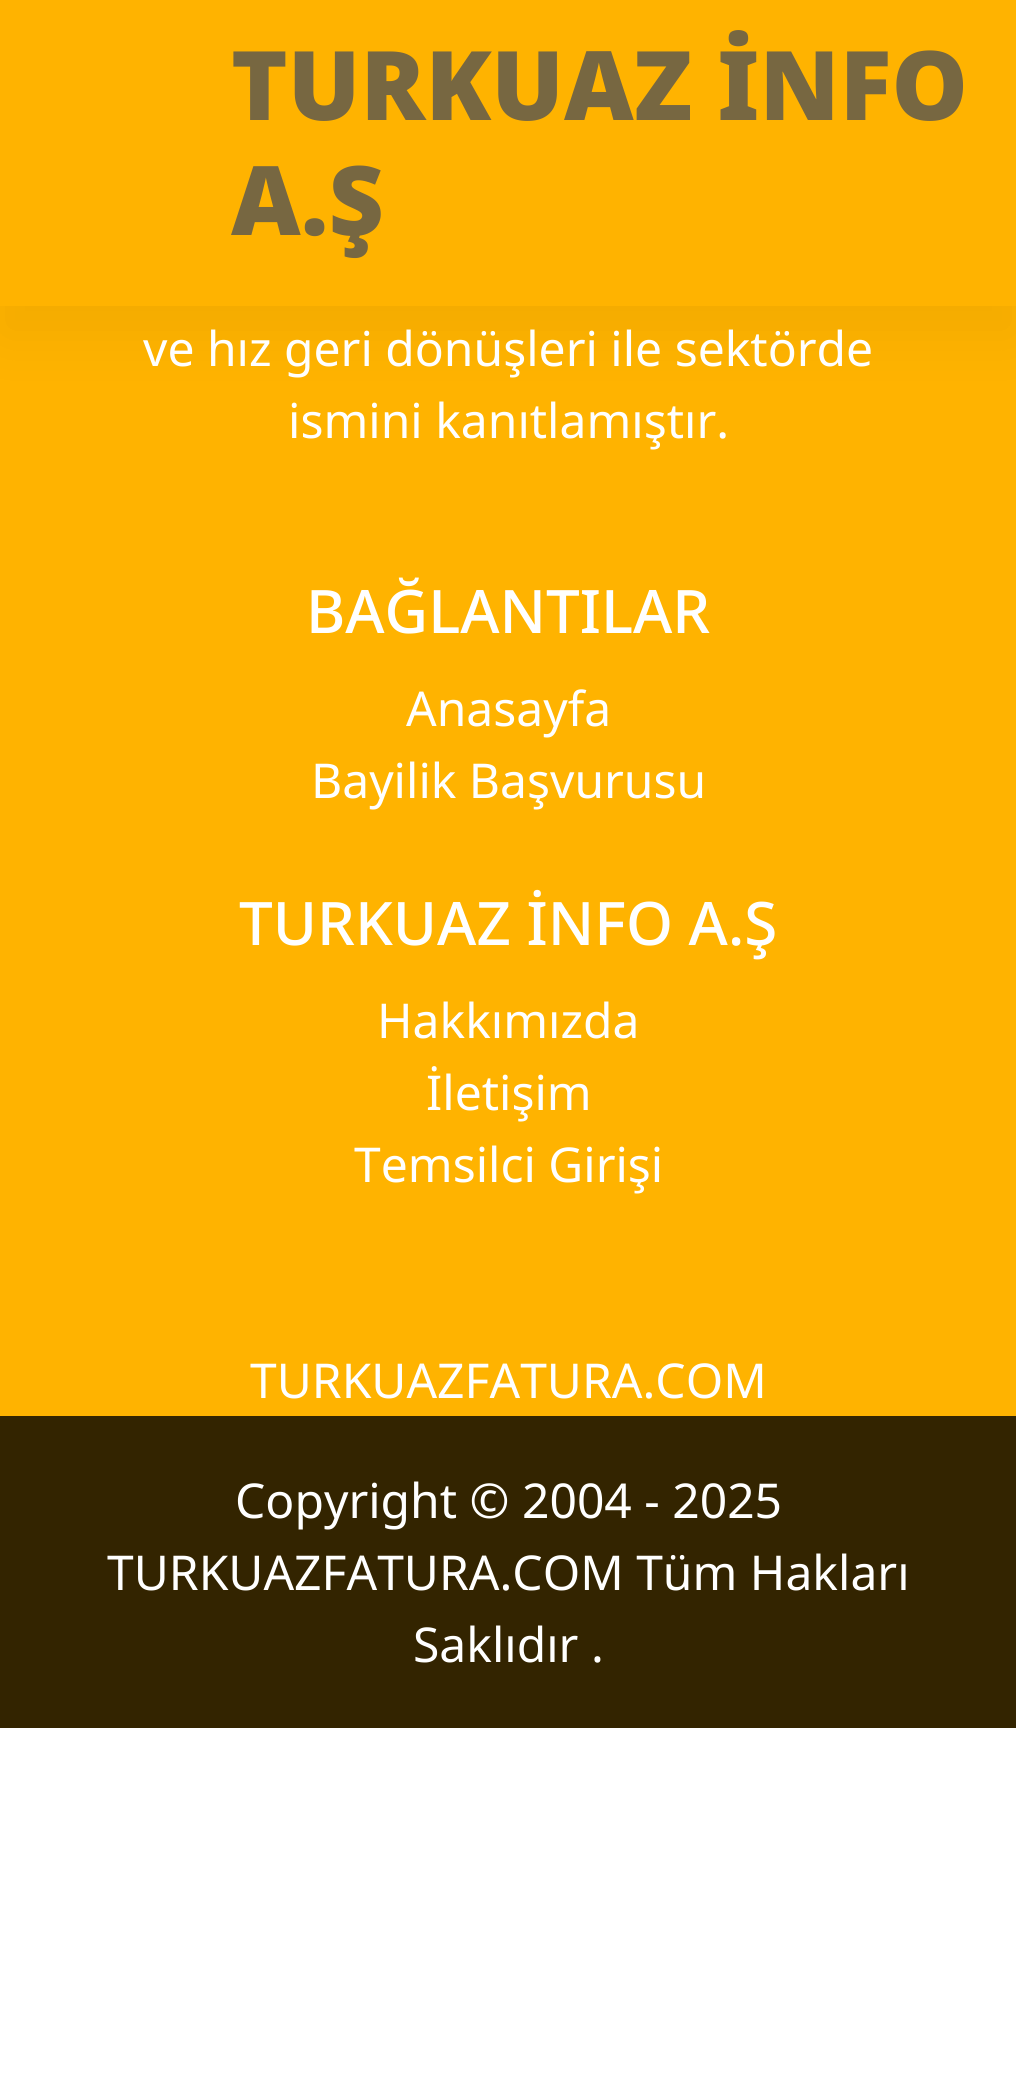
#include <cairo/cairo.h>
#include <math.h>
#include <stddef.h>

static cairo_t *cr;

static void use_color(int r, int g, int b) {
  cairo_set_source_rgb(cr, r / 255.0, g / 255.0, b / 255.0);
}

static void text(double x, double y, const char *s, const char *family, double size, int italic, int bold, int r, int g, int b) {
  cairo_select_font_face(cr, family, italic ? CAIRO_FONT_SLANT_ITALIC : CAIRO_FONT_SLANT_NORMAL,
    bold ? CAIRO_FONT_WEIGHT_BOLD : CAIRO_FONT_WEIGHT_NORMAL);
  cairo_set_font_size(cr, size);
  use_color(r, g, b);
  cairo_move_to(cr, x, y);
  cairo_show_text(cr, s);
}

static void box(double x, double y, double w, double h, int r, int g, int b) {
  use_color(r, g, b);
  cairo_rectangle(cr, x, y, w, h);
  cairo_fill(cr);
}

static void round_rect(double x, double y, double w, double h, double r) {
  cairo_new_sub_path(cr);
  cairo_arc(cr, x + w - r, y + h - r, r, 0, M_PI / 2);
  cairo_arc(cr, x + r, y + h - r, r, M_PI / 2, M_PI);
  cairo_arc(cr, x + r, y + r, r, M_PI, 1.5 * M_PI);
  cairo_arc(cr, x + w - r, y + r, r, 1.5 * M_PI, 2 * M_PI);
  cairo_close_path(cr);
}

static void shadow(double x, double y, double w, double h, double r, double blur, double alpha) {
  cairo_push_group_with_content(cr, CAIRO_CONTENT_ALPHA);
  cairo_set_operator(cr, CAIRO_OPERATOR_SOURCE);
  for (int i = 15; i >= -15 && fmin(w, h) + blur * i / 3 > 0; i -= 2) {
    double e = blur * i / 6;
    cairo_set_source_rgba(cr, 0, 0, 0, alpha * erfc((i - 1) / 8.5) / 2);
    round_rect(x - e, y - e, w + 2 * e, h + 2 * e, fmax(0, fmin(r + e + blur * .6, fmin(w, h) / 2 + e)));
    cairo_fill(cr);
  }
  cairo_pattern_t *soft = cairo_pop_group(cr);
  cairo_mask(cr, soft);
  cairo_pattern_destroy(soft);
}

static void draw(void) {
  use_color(255, 255, 255);
  cairo_paint(cr);
  box(0, 306, 1016, 1110, 255, 179, 0);
  use_color(0, 0, 0);
  shadow(0, 30, 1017, 306, 0, 30, 0.05);
  box(0, 0, 1016, 306, 255, 179, 0);
  box(0, 1416, 1016, 312, 51, 36, 0);
  text(231, 120, "TURKUAZ İNFO", "Noto Sans Black", 96, 0, 0, 119, 103, 65);
  text(231, 235, "A.Ş", "Noto Sans Black", 96, 0, 0, 119, 103, 65);
  text(143, 366, "ve hız geri dönüşleri ile sektörde", "Noto Sans", 48, 0, 0, 255, 255, 255);
  text(288, 438, "ismini kanıtlamıştır.", "Noto Sans", 48, 0, 0, 255, 255, 255);
  text(306, 633, "BAĞLANTILAR", "Noto Sans Medium", 60, 0, 0, 255, 255, 255);
  text(406, 726, "Anasayfa", "Noto Sans", 48, 0, 0, 255, 255, 255);
  text(311, 798, "Bayilik Başvurusu", "Noto Sans", 48, 0, 0, 255, 255, 255);
  text(239, 945, "TURKUAZ İNFO A.Ş", "Noto Sans Medium", 60, 0, 0, 255, 255, 255);
  text(377, 1038, "Hakkımızda", "Noto Sans", 48, 0, 0, 255, 255, 255);
  text(426, 1110, "İletişim", "Noto Sans", 48, 0, 0, 255, 255, 255);
  text(354, 1182, "Temsilci Girişi", "Noto Sans", 48, 0, 0, 255, 255, 255);
  text(250, 1398, "TURKUAZFATURA.COM", "Noto Sans", 48, 0, 0, 255, 255, 255);
  text(235, 1518, "Copyright © 2004 - 2025", "Noto Sans", 48, 0, 0, 255, 255, 255);
  text(107, 1590, "TURKUAZFATURA.COM Tüm Hakları", "Noto Sans", 48, 0, 0, 255, 255, 255);
  text(413, 1662, "Saklıdır .", "Noto Sans", 48, 0, 0, 255, 255, 255);
}

int main(void) {
  cairo_surface_t *surface = cairo_image_surface_create(CAIRO_FORMAT_RGB24, 1016, 2096);
  cr = cairo_create(surface);
  cairo_font_options_t *options = cairo_font_options_create();
  cairo_font_options_set_hint_metrics(options, CAIRO_HINT_METRICS_OFF);
  cairo_font_options_set_hint_style(options, CAIRO_HINT_STYLE_NONE);
  cairo_set_font_options(cr, options);
  cairo_set_miter_limit(cr, 4);
  draw();
  cairo_surface_write_to_png(surface, "out.png");
  cairo_font_options_destroy(options);
  cairo_destroy(cr);
  cairo_surface_destroy(surface);
  return 0;
}
